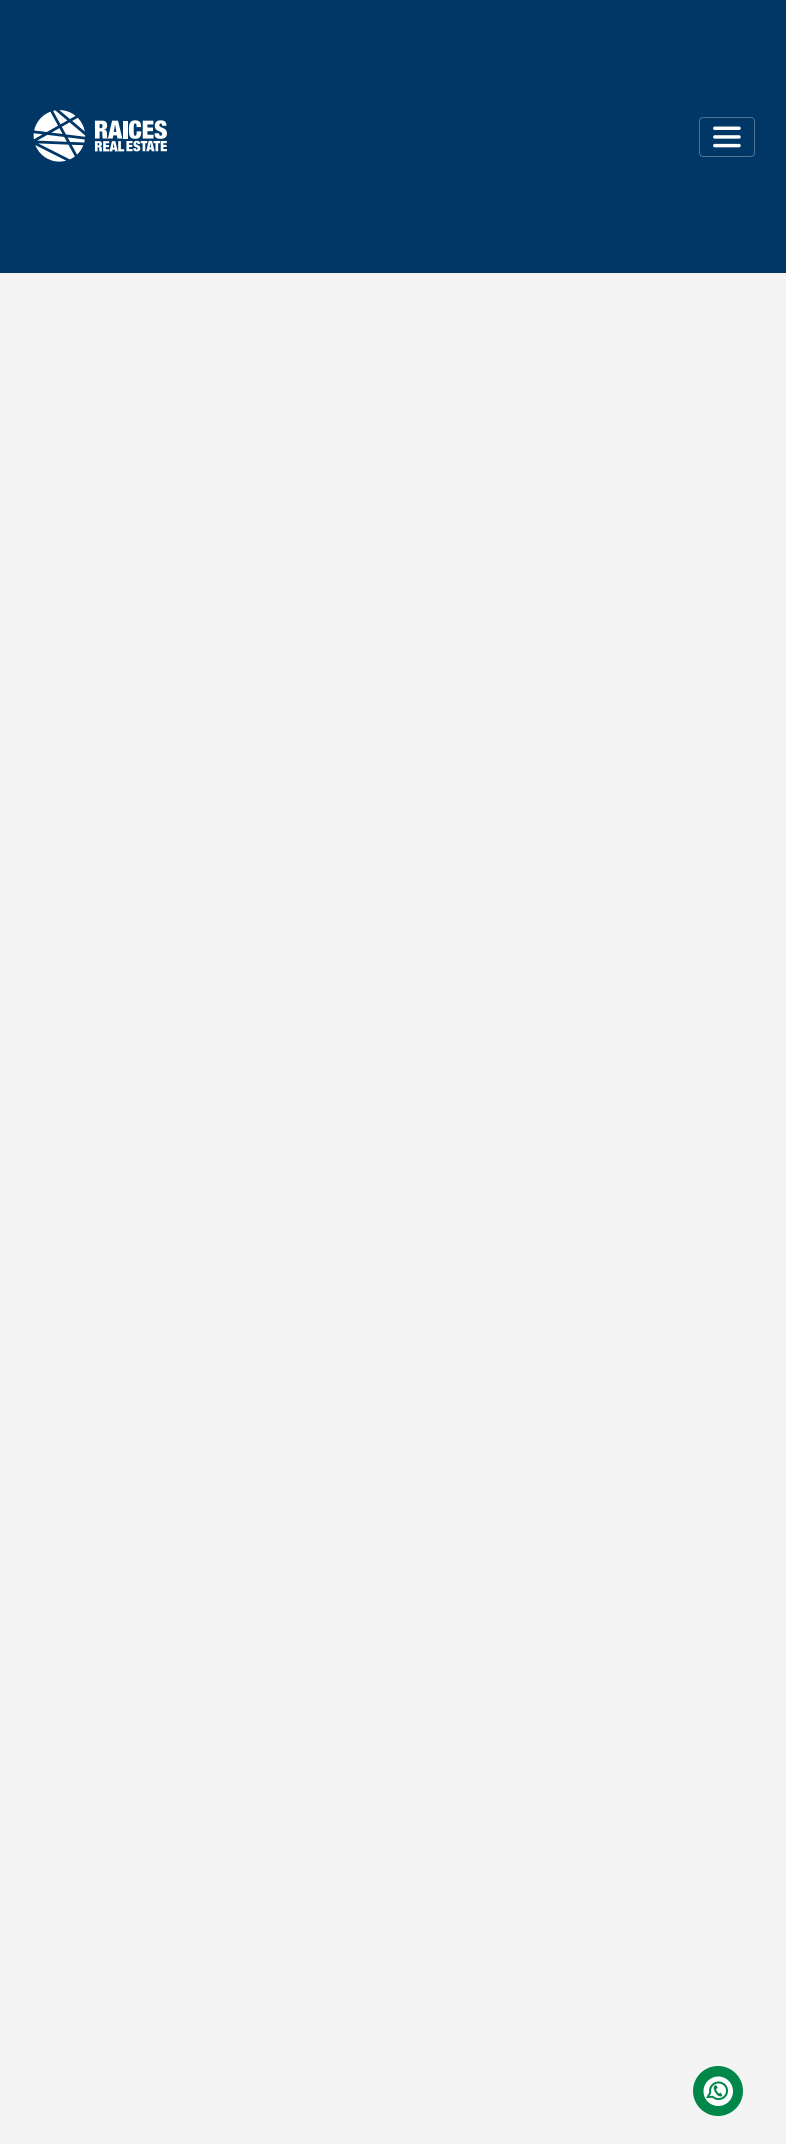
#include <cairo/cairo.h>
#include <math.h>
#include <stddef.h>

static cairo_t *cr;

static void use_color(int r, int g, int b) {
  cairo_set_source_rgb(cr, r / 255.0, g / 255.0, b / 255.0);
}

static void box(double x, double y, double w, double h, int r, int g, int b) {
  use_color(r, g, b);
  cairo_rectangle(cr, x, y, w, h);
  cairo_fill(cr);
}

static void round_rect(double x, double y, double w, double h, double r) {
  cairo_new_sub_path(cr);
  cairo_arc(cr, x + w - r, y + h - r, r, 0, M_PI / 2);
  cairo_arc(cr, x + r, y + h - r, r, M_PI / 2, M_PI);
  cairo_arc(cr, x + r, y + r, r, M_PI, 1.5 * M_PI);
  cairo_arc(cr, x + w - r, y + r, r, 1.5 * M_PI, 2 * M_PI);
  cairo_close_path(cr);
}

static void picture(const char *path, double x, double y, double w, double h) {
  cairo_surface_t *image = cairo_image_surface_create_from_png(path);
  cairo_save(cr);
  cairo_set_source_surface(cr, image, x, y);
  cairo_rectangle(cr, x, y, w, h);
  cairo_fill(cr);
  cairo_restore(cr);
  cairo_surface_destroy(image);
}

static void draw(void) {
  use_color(244, 244, 244);
  cairo_paint(cr);
  box(0, 0, 786, 273, 0, 55, 103);
  picture("img_01.png", 33, 110, 134, 52);
  round_rect(699.5, 117.5, 55, 39, 3.5);
  use_color(77, 115, 149);
  cairo_set_line_width(cr, 1);
  cairo_stroke(cr);
  picture("img_02.png", 713, 126, 28, 22);
  use_color(0, 135, 73);
  cairo_arc(cr, 718, 2091, 25, 0, 2 * M_PI);
  cairo_fill(cr);
  picture("img_03.png", 703, 2076, 30, 30);
}

int main(void) {
  cairo_surface_t *surface = cairo_image_surface_create(CAIRO_FORMAT_RGB24, 786, 2144);
  cr = cairo_create(surface);
  cairo_font_options_t *options = cairo_font_options_create();
  cairo_font_options_set_hint_metrics(options, CAIRO_HINT_METRICS_OFF);
  cairo_font_options_set_hint_style(options, CAIRO_HINT_STYLE_NONE);
  cairo_set_font_options(cr, options);
  cairo_set_miter_limit(cr, 4);
  draw();
  cairo_surface_write_to_png(surface, "out.png");
  cairo_font_options_destroy(options);
  cairo_destroy(cr);
  cairo_surface_destroy(surface);
  return 0;
}
